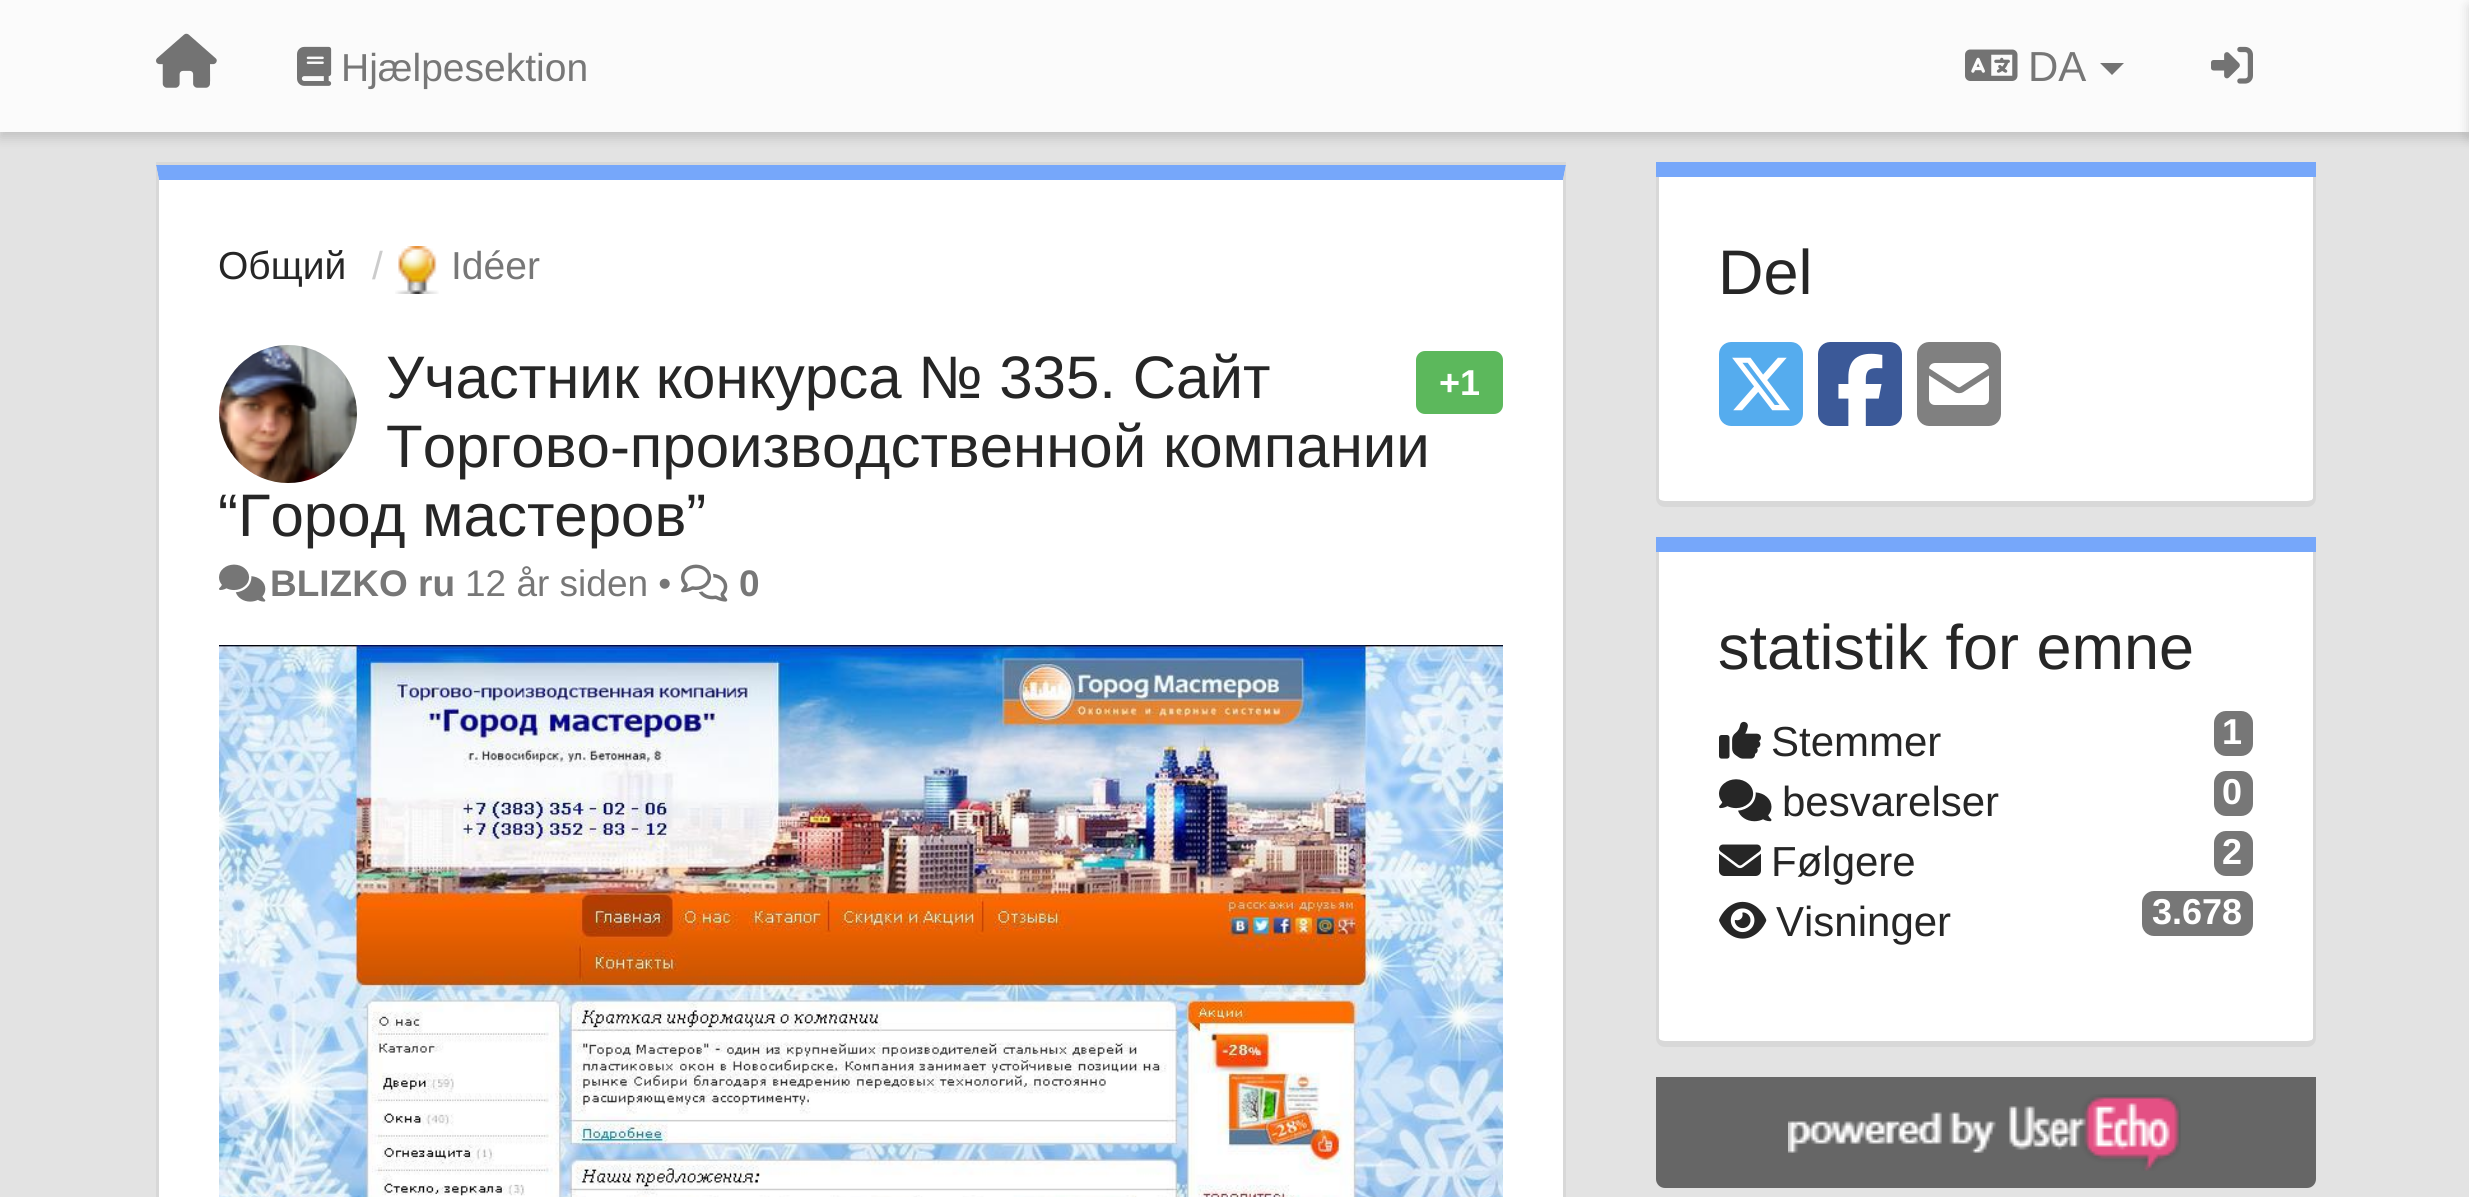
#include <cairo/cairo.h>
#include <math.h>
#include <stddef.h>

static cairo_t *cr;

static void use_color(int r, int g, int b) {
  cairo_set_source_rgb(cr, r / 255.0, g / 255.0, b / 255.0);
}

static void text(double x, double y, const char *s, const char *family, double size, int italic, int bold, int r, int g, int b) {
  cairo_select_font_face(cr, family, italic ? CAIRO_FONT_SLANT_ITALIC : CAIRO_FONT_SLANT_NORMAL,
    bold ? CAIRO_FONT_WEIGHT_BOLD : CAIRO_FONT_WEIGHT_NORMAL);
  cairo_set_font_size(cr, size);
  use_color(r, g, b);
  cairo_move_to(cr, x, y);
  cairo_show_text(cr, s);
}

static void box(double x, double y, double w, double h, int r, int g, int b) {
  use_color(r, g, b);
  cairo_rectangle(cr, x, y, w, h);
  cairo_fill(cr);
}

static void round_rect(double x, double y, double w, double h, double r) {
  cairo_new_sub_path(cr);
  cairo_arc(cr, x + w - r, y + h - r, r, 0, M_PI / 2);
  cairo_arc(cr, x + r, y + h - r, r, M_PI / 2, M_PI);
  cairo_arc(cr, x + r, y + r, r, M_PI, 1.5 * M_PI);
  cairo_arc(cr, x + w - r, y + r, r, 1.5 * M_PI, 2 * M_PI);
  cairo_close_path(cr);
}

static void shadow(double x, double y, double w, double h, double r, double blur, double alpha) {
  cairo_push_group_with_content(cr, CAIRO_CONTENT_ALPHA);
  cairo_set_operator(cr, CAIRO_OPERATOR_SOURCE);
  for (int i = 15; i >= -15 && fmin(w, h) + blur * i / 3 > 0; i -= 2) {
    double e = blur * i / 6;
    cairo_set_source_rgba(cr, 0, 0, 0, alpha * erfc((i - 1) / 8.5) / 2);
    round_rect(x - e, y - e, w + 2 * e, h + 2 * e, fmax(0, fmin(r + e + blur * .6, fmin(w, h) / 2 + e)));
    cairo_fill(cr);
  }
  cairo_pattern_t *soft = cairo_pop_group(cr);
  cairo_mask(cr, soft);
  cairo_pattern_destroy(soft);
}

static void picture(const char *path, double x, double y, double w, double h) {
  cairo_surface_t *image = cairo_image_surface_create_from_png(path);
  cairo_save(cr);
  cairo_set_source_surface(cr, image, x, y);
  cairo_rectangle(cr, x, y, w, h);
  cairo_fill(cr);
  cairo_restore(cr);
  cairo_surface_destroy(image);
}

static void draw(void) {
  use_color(227, 227, 227);
  cairo_paint(cr);
  use_color(0, 0, 0);
  shadow(0, 6, 2469, 132, 0, 6, 0.15);
  box(0, 0, 2469, 132, 251, 251, 251);
  picture("img_01.png", 156, 33, 61, 55);
  picture("img_02.png", 297, 46, 35, 40);
  picture("img_03.png", 1965, 49, 53, 32);
  use_color(115, 115, 115);
  cairo_new_path(cr);
  cairo_move_to(cr, 2100, 63);
  cairo_line_to(cr, 2124, 63);
  cairo_line_to(cr, 2112, 75);
  cairo_close_path(cr);
  cairo_fill(cr);
  picture("img_04.png", 2211, 46, 42, 38);
  use_color(0, 0, 0);
  shadow(2469, 6, 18, 132, 0, 6, 0.15);
  box(156, 162, 1410, 3, 216, 216, 216);
  use_color(255, 255, 255);
  cairo_new_path(cr);
  cairo_move_to(cr, 159, 180);
  cairo_line_to(cr, 1563, 180);
  cairo_line_to(cr, 1563, 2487);
  cairo_curve_to(cr, 1563, 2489, 1560, 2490, 1557, 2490);
  cairo_line_to(cr, 165, 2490);
  cairo_curve_to(cr, 162, 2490, 159, 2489, 159, 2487);
  cairo_close_path(cr);
  cairo_fill(cr);
  use_color(118, 167, 250);
  cairo_new_path(cr);
  cairo_move_to(cr, 156, 165);
  cairo_line_to(cr, 159, 180);
  cairo_line_to(cr, 1563, 180);
  cairo_line_to(cr, 1566, 165);
  cairo_close_path(cr);
  cairo_fill(cr);
  use_color(216, 216, 216);
  cairo_new_path(cr);
  cairo_move_to(cr, 1566, 165);
  cairo_line_to(cr, 1563, 180);
  cairo_line_to(cr, 1563, 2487);
  cairo_line_to(cr, 1562, 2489);
  cairo_line_to(cr, 1564, 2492);
  cairo_curve_to(cr, 1565, 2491, 1566, 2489, 1566, 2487);
  cairo_close_path(cr);
  cairo_fill(cr);
  cairo_new_path(cr);
  cairo_move_to(cr, 159, 180);
  cairo_line_to(cr, 156, 165);
  cairo_line_to(cr, 156, 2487);
  cairo_curve_to(cr, 156, 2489, 157, 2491, 158, 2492);
  cairo_line_to(cr, 160, 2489);
  cairo_line_to(cr, 159, 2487);
  cairo_close_path(cr);
  cairo_fill(cr);
  picture("img_05.png", 395, 246, 44, 48);
  picture("img_06.png", 219, 345, 138, 138);
  use_color(92, 184, 92);
  round_rect(1416, 351, 87, 63, 9);
  cairo_fill(cr);
  picture("img_07.png", 219, 564, 47, 38);
  picture("img_08.png", 681, 564, 47, 38);
  picture("img_09.png", 219, 645, 1284, 552);
  box(1656, 162, 660, 15, 118, 167, 250);
  use_color(255, 255, 255);
  cairo_new_path(cr);
  cairo_move_to(cr, 1659, 177);
  cairo_line_to(cr, 2313, 177);
  cairo_line_to(cr, 2313, 498);
  cairo_curve_to(cr, 2313, 500, 2310, 501, 2307, 501);
  cairo_line_to(cr, 1665, 501);
  cairo_curve_to(cr, 1662, 501, 1659, 500, 1659, 498);
  cairo_close_path(cr);
  cairo_fill(cr);
  use_color(216, 216, 216);
  cairo_set_fill_rule(cr, CAIRO_FILL_RULE_EVEN_ODD);
  cairo_new_path(cr);
  cairo_move_to(cr, 1656, 177);
  cairo_line_to(cr, 2316, 177);
  cairo_line_to(cr, 2316, 498);
  cairo_curve_to(cr, 2316, 503, 2312, 507, 2307, 507);
  cairo_line_to(cr, 1665, 507);
  cairo_curve_to(cr, 1660, 507, 1656, 503, 1656, 498);
  cairo_close_path(cr);
  cairo_move_to(cr, 1659, 177);
  cairo_line_to(cr, 2313, 177);
  cairo_line_to(cr, 2313, 498);
  cairo_curve_to(cr, 2313, 500, 2310, 501, 2307, 501);
  cairo_line_to(cr, 1665, 501);
  cairo_curve_to(cr, 1662, 501, 1659, 500, 1659, 498);
  cairo_close_path(cr);
  cairo_fill(cr);
  picture("img_10.png", 1719, 342, 84, 84);
  picture("img_11.png", 1818, 342, 84, 84);
  picture("img_12.png", 1917, 342, 84, 84);
  box(1656, 537, 660, 15, 118, 167, 250);
  use_color(255, 255, 255);
  cairo_set_fill_rule(cr, CAIRO_FILL_RULE_WINDING);
  cairo_new_path(cr);
  cairo_move_to(cr, 1659, 552);
  cairo_line_to(cr, 2313, 552);
  cairo_line_to(cr, 2313, 1038);
  cairo_curve_to(cr, 2313, 1040, 2310, 1041, 2307, 1041);
  cairo_line_to(cr, 1665, 1041);
  cairo_curve_to(cr, 1662, 1041, 1659, 1040, 1659, 1038);
  cairo_close_path(cr);
  cairo_fill(cr);
  use_color(216, 216, 216);
  cairo_set_fill_rule(cr, CAIRO_FILL_RULE_EVEN_ODD);
  cairo_new_path(cr);
  cairo_move_to(cr, 1656, 552);
  cairo_line_to(cr, 2316, 552);
  cairo_line_to(cr, 2316, 1038);
  cairo_curve_to(cr, 2316, 1043, 2312, 1047, 2307, 1047);
  cairo_line_to(cr, 1665, 1047);
  cairo_curve_to(cr, 1660, 1047, 1656, 1043, 1656, 1038);
  cairo_close_path(cr);
  cairo_move_to(cr, 1659, 552);
  cairo_line_to(cr, 2313, 552);
  cairo_line_to(cr, 2313, 1038);
  cairo_curve_to(cr, 2313, 1040, 2310, 1041, 2307, 1041);
  cairo_line_to(cr, 1665, 1041);
  cairo_curve_to(cr, 1662, 1041, 1659, 1040, 1659, 1038);
  cairo_close_path(cr);
  cairo_fill(cr);
  picture("img_13.png", 1719, 721, 42, 38);
  use_color(119, 119, 119);
  round_rect(2214, 711, 39, 45, 12);
  cairo_fill(cr);
  picture("img_14.png", 1719, 779, 53, 43);
  round_rect(2214, 771, 39, 45, 12);
  cairo_fill(cr);
  picture("img_15.png", 1719, 844, 42, 32);
  round_rect(2214, 831, 39, 45, 12);
  cairo_fill(cr);
  picture("img_16.png", 1719, 901, 48, 38);
  round_rect(2142, 891, 111, 45, 12);
  cairo_fill(cr);
  use_color(102, 102, 102);
  cairo_new_path(cr);
  cairo_move_to(cr, 1656, 1077);
  cairo_line_to(cr, 2316, 1077);
  cairo_line_to(cr, 2316, 1179);
  cairo_curve_to(cr, 2316, 1184, 2312, 1188, 2307, 1188);
  cairo_line_to(cr, 1665, 1188);
  cairo_curve_to(cr, 1660, 1188, 1656, 1184, 1656, 1179);
  cairo_close_path(cr);
  cairo_fill(cr);
  picture("img_17.png", 1788, 1094, 393, 77);
  text(341, 81, "Hjælpesektion", "Liberation Sans", 39, 0, 0, 119, 119, 119);
  text(2028, 81, "DA", "Liberation Sans", 42, 0, 0, 119, 119, 119);
  text(218, 279, "Общий", "Liberation Sans", 39, 0, 0, 38, 38, 38);
  text(372, 279, "/", "Liberation Sans", 39, 0, 0, 204, 204, 204);
  text(451, 279, "Idéer", "Liberation Sans", 39, 0, 0, 119, 119, 119);
  text(386, 398, "Участник конкурса № 335. Сайт", "Liberation Sans", 60, 0, 0, 38, 38, 38);
  text(386, 467, "Торгово-производственной компании", "Liberation Sans", 60, 0, 0, 38, 38, 38);
  text(218, 536, "“Город мастеров”", "Liberation Sans", 60, 0, 0, 38, 38, 38);
  text(1439, 395, "+1", "Liberation Sans", 36, 0, 1, 255, 255, 255);
  text(270, 596, "BLIZKO ru", "Liberation Sans", 37, 0, 1, 119, 119, 119);
  text(465, 596, "12 år siden •", "Liberation Sans", 37, 0, 0, 119, 119, 119);
  text(739, 596, "0", "Liberation Sans", 37, 0, 1, 119, 119, 119);
  text(1718, 294, "Del", "Liberation Sans", 63, 0, 0, 38, 38, 38);
  text(1718, 669, "statistik for emne", "Liberation Sans", 63, 0, 0, 38, 38, 38);
  text(1771, 756, "Stemmer", "Liberation Sans", 42, 0, 0, 38, 38, 38);
  text(2222, 744, "1", "Liberation Sans", 36, 0, 1, 255, 255, 255);
  text(1782, 816, "besvarelser", "Liberation Sans", 42, 0, 0, 38, 38, 38);
  text(2222, 804, "0", "Liberation Sans", 36, 0, 1, 255, 255, 255);
  text(1771, 876, "Følgere", "Liberation Sans", 42, 0, 0, 38, 38, 38);
  text(2222, 864, "2", "Liberation Sans", 36, 0, 1, 255, 255, 255);
  text(1776, 936, "Visninger", "Liberation Sans", 42, 0, 0, 38, 38, 38);
  text(2152, 924, "3.678", "Liberation Sans", 36, 0, 1, 255, 255, 255);
}

int main(void) {
  cairo_surface_t *surface = cairo_image_surface_create(CAIRO_FORMAT_RGB24, 2469, 1197);
  cr = cairo_create(surface);
  cairo_font_options_t *options = cairo_font_options_create();
  cairo_font_options_set_hint_metrics(options, CAIRO_HINT_METRICS_OFF);
  cairo_font_options_set_hint_style(options, CAIRO_HINT_STYLE_NONE);
  cairo_set_font_options(cr, options);
  cairo_set_miter_limit(cr, 4);
  draw();
  cairo_surface_write_to_png(surface, "out.png");
  cairo_font_options_destroy(options);
  cairo_destroy(cr);
  cairo_surface_destroy(surface);
  return 0;
}
